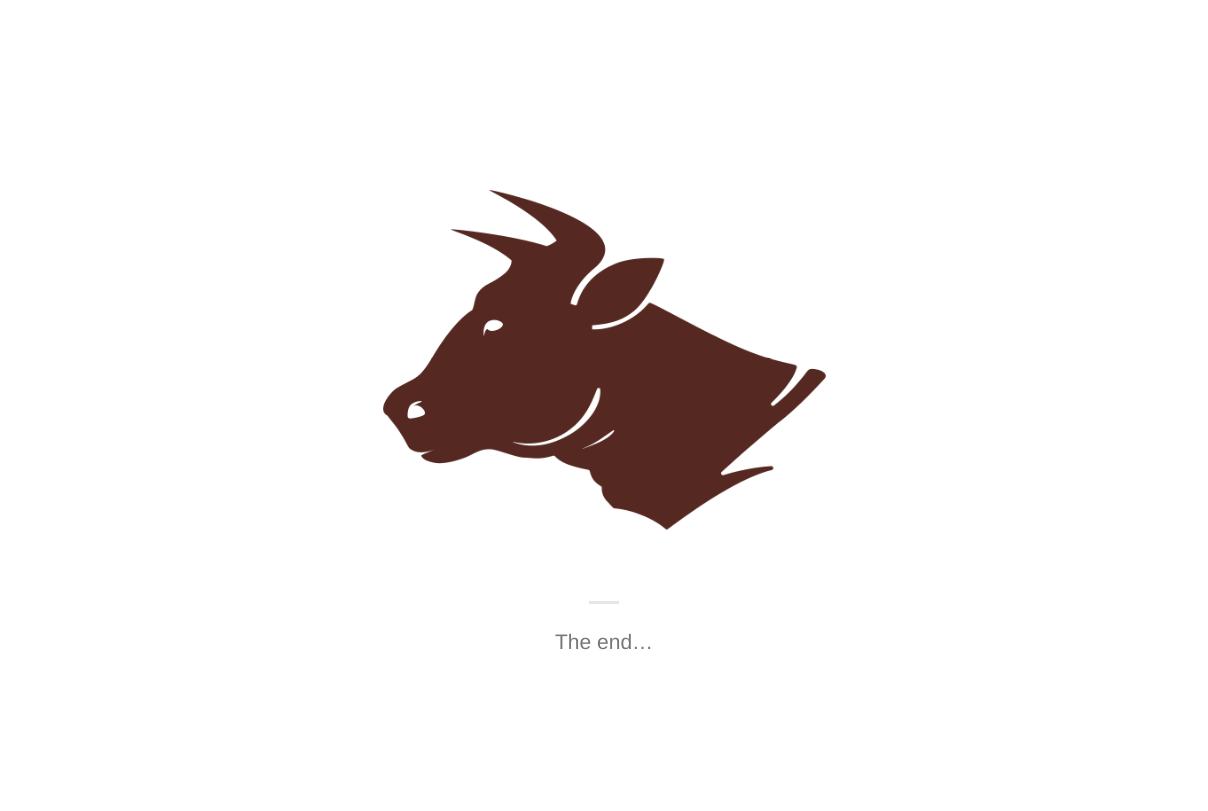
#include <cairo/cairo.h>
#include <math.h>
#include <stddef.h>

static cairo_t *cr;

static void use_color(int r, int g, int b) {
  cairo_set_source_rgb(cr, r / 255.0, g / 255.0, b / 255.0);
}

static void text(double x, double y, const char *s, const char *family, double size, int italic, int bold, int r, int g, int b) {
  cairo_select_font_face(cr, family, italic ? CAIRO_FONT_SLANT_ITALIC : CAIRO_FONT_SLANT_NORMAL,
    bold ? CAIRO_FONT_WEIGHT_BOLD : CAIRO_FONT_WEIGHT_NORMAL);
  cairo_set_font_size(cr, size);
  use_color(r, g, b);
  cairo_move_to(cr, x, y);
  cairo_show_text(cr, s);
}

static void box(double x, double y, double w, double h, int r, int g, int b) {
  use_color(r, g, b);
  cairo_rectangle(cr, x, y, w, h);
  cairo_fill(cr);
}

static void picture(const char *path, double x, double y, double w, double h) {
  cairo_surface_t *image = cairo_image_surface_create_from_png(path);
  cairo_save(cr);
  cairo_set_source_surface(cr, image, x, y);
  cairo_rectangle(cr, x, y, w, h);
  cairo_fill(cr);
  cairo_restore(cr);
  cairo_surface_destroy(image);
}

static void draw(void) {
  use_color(255, 255, 255);
  cairo_paint(cr);
  picture("img_01.png", 383, 190, 443, 340);
  box(589, 601, 30, 3, 230, 230, 230);
  text(555, 649, "The end…", "Liberation Sans", 21, 0, 0, 119, 119, 119);
}

int main(void) {
  cairo_surface_t *surface = cairo_image_surface_create(CAIRO_FORMAT_RGB24, 1208, 811);
  cr = cairo_create(surface);
  cairo_font_options_t *options = cairo_font_options_create();
  cairo_font_options_set_hint_metrics(options, CAIRO_HINT_METRICS_OFF);
  cairo_font_options_set_hint_style(options, CAIRO_HINT_STYLE_NONE);
  cairo_set_font_options(cr, options);
  cairo_set_miter_limit(cr, 4);
  draw();
  cairo_surface_write_to_png(surface, "out.png");
  cairo_font_options_destroy(options);
  cairo_destroy(cr);
  cairo_surface_destroy(surface);
  return 0;
}
